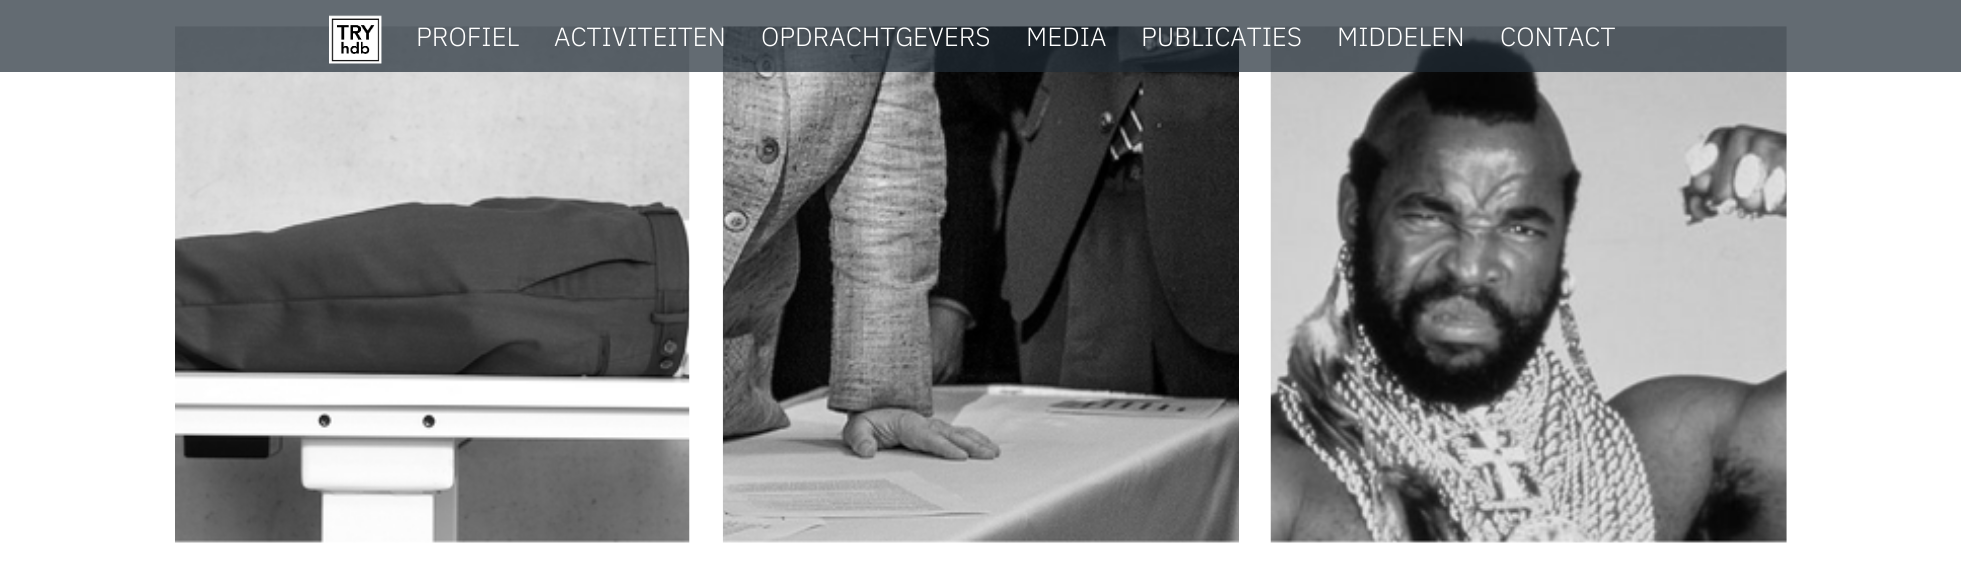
#include <cairo/cairo.h>
#include <math.h>
#include <stddef.h>

static cairo_t *cr;

static void use_color(int r, int g, int b) {
  cairo_set_source_rgb(cr, r / 255.0, g / 255.0, b / 255.0);
}

static void text(double x, double y, const char *s, const char *family, double size, int italic, int bold, int r, int g, int b) {
  cairo_select_font_face(cr, family, italic ? CAIRO_FONT_SLANT_ITALIC : CAIRO_FONT_SLANT_NORMAL,
    bold ? CAIRO_FONT_WEIGHT_BOLD : CAIRO_FONT_WEIGHT_NORMAL);
  cairo_set_font_size(cr, size);
  use_color(r, g, b);
  cairo_move_to(cr, x, y);
  cairo_show_text(cr, s);
}

static void picture(const char *path, double x, double y, double w, double h) {
  cairo_surface_t *image = cairo_image_surface_create_from_png(path);
  cairo_save(cr);
  cairo_set_source_surface(cr, image, x, y);
  cairo_rectangle(cr, x, y, w, h);
  cairo_fill(cr);
  cairo_restore(cr);
  cairo_surface_destroy(image);
}

static void draw(void) {
  use_color(255, 255, 255);
  cairo_paint(cr);
  picture("img_01.png", 175, 26, 515, 517);
  picture("img_02.png", 722, 26, 517, 517);
  picture("img_03.png", 1270, 26, 517, 517);
  cairo_set_source_rgba(cr, 0.129, 0.173, 0.216, 0.7);
  cairo_rectangle(cr, 0, 0, 1961, 72);
  cairo_fill(cr);
  picture("img_04.png", 329, 15, 53, 49);
  text(416, 46, "PROFIEL", "IBM Plex Sans Light", 26.25, 0, 0, 255, 255, 255);
  text(554, 46, "ACTIVITEITEN", "IBM Plex Sans Light", 26.25, 0, 0, 255, 255, 255);
  text(761, 46, "OPDRACHTGEVERS", "IBM Plex Sans Light", 26.25, 0, 0, 255, 255, 255);
  text(1026, 46, "MEDIA", "IBM Plex Sans Light", 26.25, 0, 0, 255, 255, 255);
  text(1141, 46, "PUBLICATIES", "IBM Plex Sans Light", 26.25, 0, 0, 255, 255, 255);
  text(1337, 46, "MIDDELEN", "IBM Plex Sans Light", 26.25, 0, 0, 255, 255, 255);
  text(1500, 46, "CONTACT", "IBM Plex Sans Light", 26.25, 0, 0, 255, 255, 255);
}

int main(void) {
  cairo_surface_t *surface = cairo_image_surface_create(CAIRO_FORMAT_RGB24, 1961, 574);
  cr = cairo_create(surface);
  cairo_font_options_t *options = cairo_font_options_create();
  cairo_font_options_set_hint_metrics(options, CAIRO_HINT_METRICS_OFF);
  cairo_font_options_set_hint_style(options, CAIRO_HINT_STYLE_NONE);
  cairo_set_font_options(cr, options);
  cairo_set_miter_limit(cr, 4);
  draw();
  cairo_surface_write_to_png(surface, "out.png");
  cairo_font_options_destroy(options);
  cairo_destroy(cr);
  cairo_surface_destroy(surface);
  return 0;
}
